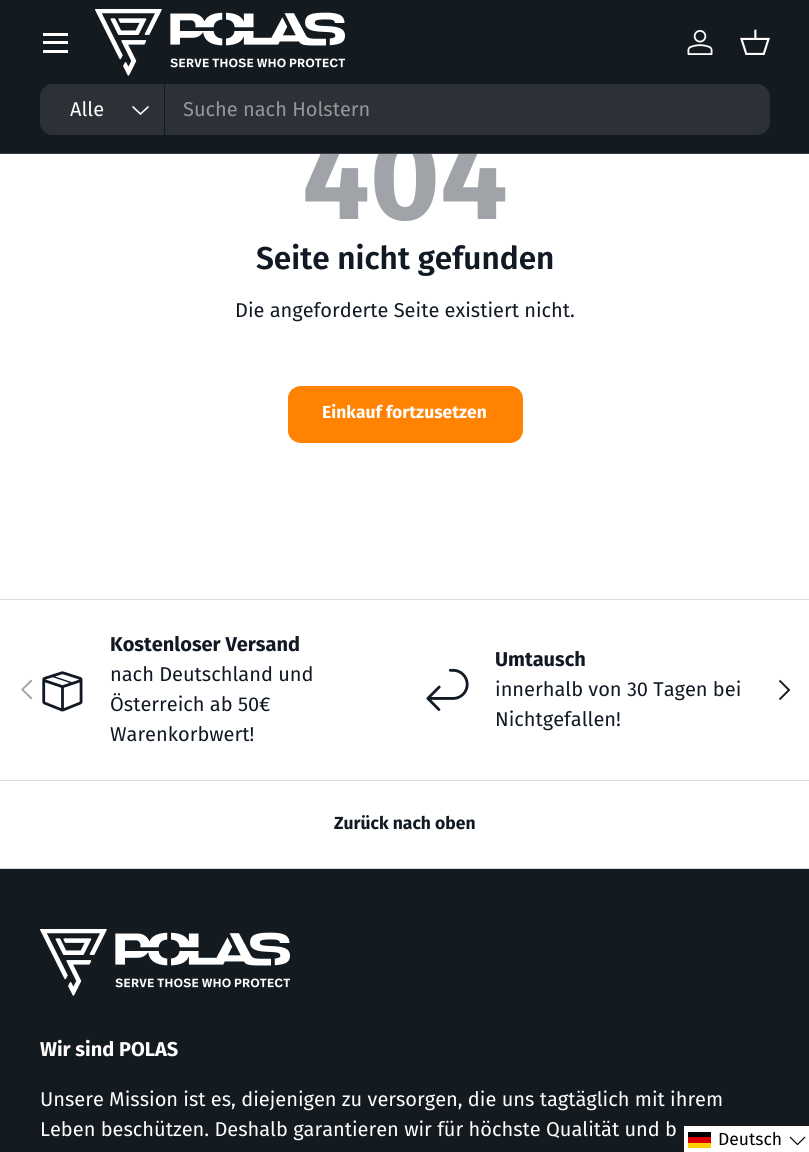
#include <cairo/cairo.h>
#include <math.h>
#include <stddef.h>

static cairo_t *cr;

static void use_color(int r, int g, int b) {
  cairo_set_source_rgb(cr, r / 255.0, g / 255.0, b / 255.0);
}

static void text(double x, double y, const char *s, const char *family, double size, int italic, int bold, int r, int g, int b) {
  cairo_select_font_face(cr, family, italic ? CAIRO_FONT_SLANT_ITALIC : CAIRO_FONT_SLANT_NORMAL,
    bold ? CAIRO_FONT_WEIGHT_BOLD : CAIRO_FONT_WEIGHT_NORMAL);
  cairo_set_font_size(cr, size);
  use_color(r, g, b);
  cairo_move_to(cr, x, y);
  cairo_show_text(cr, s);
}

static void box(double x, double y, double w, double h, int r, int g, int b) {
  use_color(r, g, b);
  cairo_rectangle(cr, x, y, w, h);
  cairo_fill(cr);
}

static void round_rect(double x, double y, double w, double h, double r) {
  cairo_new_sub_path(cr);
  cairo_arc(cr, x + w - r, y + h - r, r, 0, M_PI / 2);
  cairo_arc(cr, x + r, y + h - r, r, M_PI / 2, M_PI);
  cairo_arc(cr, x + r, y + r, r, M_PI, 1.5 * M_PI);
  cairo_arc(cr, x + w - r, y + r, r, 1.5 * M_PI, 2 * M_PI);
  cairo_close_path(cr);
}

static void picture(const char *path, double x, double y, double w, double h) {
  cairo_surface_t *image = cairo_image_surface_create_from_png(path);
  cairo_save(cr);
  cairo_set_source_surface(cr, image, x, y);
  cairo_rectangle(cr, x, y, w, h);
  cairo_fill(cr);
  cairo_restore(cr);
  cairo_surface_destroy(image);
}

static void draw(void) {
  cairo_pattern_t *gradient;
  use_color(255, 255, 255);
  cairo_paint(cr);
  cairo_save(cr);
  round_rect(288, 386, 235, 57, 13);
  cairo_clip(cr);
  gradient = cairo_pattern_create_linear(-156, 332, 506, 497);
  cairo_pattern_add_color_stop_rgba(gradient, 0.6, 1, 0.612, 0.208, 1);
  cairo_pattern_add_color_stop_rgba(gradient, 0.6, 1, 0.51, 0, 1);
  cairo_pattern_add_color_stop_rgba(gradient, 1, 1, 0.51, 0, 1);
  cairo_set_source(cr, gradient);
  cairo_pattern_destroy(gradient);
  cairo_rectangle(cr, 288, 389, 232, 51);
  cairo_fill(cr);
  cairo_restore(cr);
  round_rect(289.5, 387.5, 232, 54, 11.5);
  use_color(255, 130, 0);
  cairo_set_line_width(cr, 3);
  cairo_stroke(cr);
  box(0, 599, 809, 1, 219, 221, 222);
  picture("img_04.png", 42, 671, 41, 41);
  picture("img_05.png", 426, 668, 43, 43);
  use_color(160, 163, 167);
  cairo_new_path(cr);
  cairo_move_to(cr, 21, 689.5);
  cairo_line_to(cr, 31, 679.5);
  cairo_line_to(cr, 32.5, 681);
  cairo_line_to(cr, 23.5, 689.5);
  cairo_line_to(cr, 32.5, 698);
  cairo_line_to(cr, 31, 699.5);
  cairo_close_path(cr);
  cairo_fill(cr);
  cairo_new_path(cr);
  cairo_move_to(cr, 779.5, 680.5);
  cairo_line_to(cr, 789, 690);
  cairo_line_to(cr, 779.5, 699.5);
  use_color(17, 25, 36);
  cairo_set_line_width(cr, 1.9);
  cairo_stroke(cr);
  box(0, 780, 809, 1, 219, 221, 222);
  box(0, 868, 809, 1, 219, 221, 222);
  box(0, 869, 809, 283, 19, 26, 32);
  picture("img_01.png", 40, 929, 250, 67);
  box(684, 1126, 125, 26, 255, 255, 255);
  box(688, 1143, 23, 5, 255, 206, 0);
  box(688, 1132, 23, 5, 0, 0, 0);
  box(688, 1137, 23, 6, 221, 0, 0);
  cairo_new_path(cr);
  cairo_move_to(cr, 790, 1137);
  cairo_line_to(cr, 797.5, 1144.5);
  cairo_line_to(cr, 805, 1137);
  use_color(0, 0, 0);
  cairo_set_line_width(cr, 1.2);
  cairo_stroke(cr);
  text(302, 219, "404", "Fira Sans", 120, 0, 1, 160, 163, 167);
  box(0, 0, 809, 153, 19, 26, 32);
  box(43, 50, 25, 3, 255, 253, 253);
  box(43, 33, 25, 3, 255, 253, 253);
  box(43, 41, 25, 3, 255, 253, 253);
  picture("img_03.png", 740, 29, 30, 26);
  use_color(43, 49, 54);
  round_rect(40, 84, 730, 51, 13);
  cairo_fill(cr);
  cairo_new_path(cr);
  cairo_move_to(cr, 53, 84);
  cairo_line_to(cr, 165, 84);
  cairo_line_to(cr, 165, 135);
  cairo_line_to(cr, 53, 135);
  cairo_curve_to(cr, 46, 135, 40, 129, 40, 122);
  cairo_line_to(cr, 40, 97);
  cairo_curve_to(cr, 40, 90, 46, 84, 53, 84);
  cairo_close_path(cr);
  cairo_fill(cr);
  cairo_new_path(cr);
  cairo_move_to(cr, 148.5, 106.5);
  cairo_line_to(cr, 140.5, 114);
  cairo_line_to(cr, 132.5, 106.5);
  use_color(255, 253, 253);
  cairo_set_line_width(cr, 1.6);
  cairo_stroke(cr);
  text(70, 116, "Alle", "Fira Sans", 20, 0, 0, 255, 253, 253);
  box(164, 84, 1, 51, 19, 26, 32);
  text(183, 116, "Suche nach Holstern", "Fira Sans", 20, 0, 0, 149, 151, 154);
  picture("img_02.png", 687, 30, 26, 25);
  picture("img_01.png", 95, 9, 250, 67);
  box(0, 153, 809, 1, 54, 60, 65);
  text(256, 269, "Seite nicht gefunden", "Fira Sans SemiBold", 31.6, 0, 0, 17, 25, 36);
  text(235, 317, "Die angeforderte Seite existiert nicht.", "Fira Sans", 20, 0, 0, 17, 25, 36);
  text(322, 418, "Einkauf fortzusetzen", "Fira Sans", 17.5, 0, 1, 255, 253, 253);
  text(110, 651, "Kostenloser Versand", "Fira Sans", 20, 0, 1, 17, 25, 36);
  text(110, 681, "nach Deutschland und", "Fira Sans", 20, 0, 0, 17, 25, 36);
  text(110, 711, "Österreich ab 50€", "Fira Sans", 20, 0, 0, 17, 25, 36);
  text(110, 741, "Warenkorbwert!", "Fira Sans", 20, 0, 0, 17, 25, 36);
  text(495, 666, "Umtausch", "Fira Sans", 20, 0, 1, 17, 25, 36);
  text(495, 696, "innerhalb von 30 Tagen bei", "Fira Sans", 20, 0, 0, 17, 25, 36);
  text(495, 726, "Nichtgefallen!", "Fira Sans", 20, 0, 0, 17, 25, 36);
  text(334, 829, "Zurück nach oben", "Fira Sans", 17.5, 0, 1, 17, 25, 36);
  text(40, 1056, "Wir sind POLAS", "Fira Sans", 20, 0, 1, 255, 253, 253);
  text(40, 1106, "Unsere Mission ist es, diejenigen zu versorgen, die uns tagtäglich mit ihrem", "Fira Sans", 20, 0, 0, 255, 253, 253);
  text(40, 1136, "Leben beschützen. Deshalb garantieren wir für höchste Qualität und b", "Fira Sans", 20, 0, 0, 255, 253, 253);
  text(718, 1145, "Deutsch", "Fira Sans", 17.5, 0, 0, 0, 0, 0);
}

int main(void) {
  cairo_surface_t *surface = cairo_image_surface_create(CAIRO_FORMAT_RGB24, 809, 1152);
  cr = cairo_create(surface);
  cairo_font_options_t *options = cairo_font_options_create();
  cairo_font_options_set_hint_metrics(options, CAIRO_HINT_METRICS_OFF);
  cairo_font_options_set_hint_style(options, CAIRO_HINT_STYLE_NONE);
  cairo_set_font_options(cr, options);
  cairo_set_miter_limit(cr, 4);
  draw();
  cairo_surface_write_to_png(surface, "out.png");
  cairo_font_options_destroy(options);
  cairo_destroy(cr);
  cairo_surface_destroy(surface);
  return 0;
}
